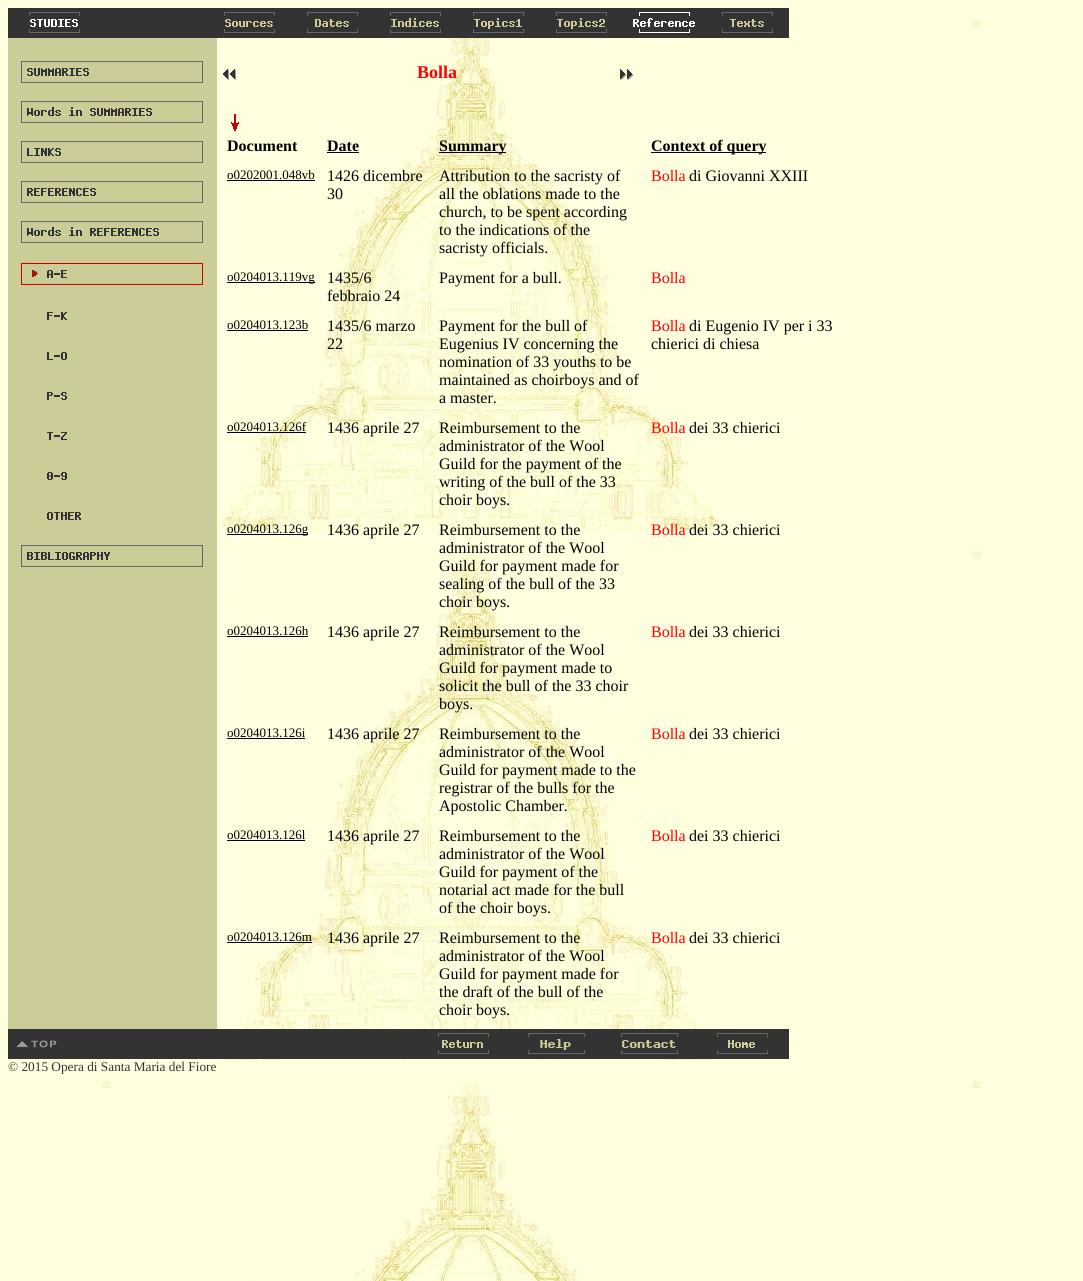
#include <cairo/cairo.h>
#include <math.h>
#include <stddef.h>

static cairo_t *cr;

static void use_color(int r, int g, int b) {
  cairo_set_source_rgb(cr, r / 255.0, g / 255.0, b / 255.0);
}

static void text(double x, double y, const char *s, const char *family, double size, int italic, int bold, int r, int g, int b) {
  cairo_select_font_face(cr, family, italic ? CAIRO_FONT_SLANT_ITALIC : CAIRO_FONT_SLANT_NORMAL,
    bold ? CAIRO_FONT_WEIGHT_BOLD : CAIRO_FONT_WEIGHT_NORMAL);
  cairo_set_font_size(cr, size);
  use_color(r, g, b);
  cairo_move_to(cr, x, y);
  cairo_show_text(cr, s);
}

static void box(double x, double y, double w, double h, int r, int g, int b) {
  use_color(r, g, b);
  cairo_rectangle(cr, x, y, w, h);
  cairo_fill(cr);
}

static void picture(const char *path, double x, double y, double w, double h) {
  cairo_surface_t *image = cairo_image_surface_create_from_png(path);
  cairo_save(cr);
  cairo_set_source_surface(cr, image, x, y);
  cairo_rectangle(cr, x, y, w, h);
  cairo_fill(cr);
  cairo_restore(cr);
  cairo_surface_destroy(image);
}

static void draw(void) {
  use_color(255, 255, 255);
  cairo_paint(cr);
  picture("img_01.png", 0, 0, 1083, 1281);
  box(8, 8, 781, 30, 51, 51, 51);
  picture("img_02.png", 29, 12, 51, 21);
  picture("img_03.png", 224, 12, 51, 21);
  picture("img_04.png", 307, 12, 51, 21);
  picture("img_05.png", 390, 12, 51, 21);
  picture("img_06.png", 473, 12, 51, 21);
  picture("img_07.png", 556, 12, 51, 21);
  picture("img_08.png", 633, 12, 62, 21);
  picture("img_09.png", 722, 12, 51, 21);
  box(8, 38, 209, 991, 204, 204, 153);
  picture("img_10.png", 21, 61, 182, 22);
  picture("img_11.png", 21, 101, 182, 22);
  picture("img_12.png", 21, 141, 182, 22);
  picture("img_13.png", 21, 181, 182, 22);
  picture("img_14.png", 21, 221, 182, 22);
  picture("img_15.png", 21, 263, 182, 22);
  picture("img_16.png", 47, 312, 20, 8);
  picture("img_17.png", 47, 352, 20, 8);
  picture("img_18.png", 47, 392, 20, 8);
  picture("img_19.png", 47, 432, 20, 8);
  picture("img_20.png", 47, 472, 20, 8);
  picture("img_21.png", 47, 512, 34, 8);
  picture("img_22.png", 21, 545, 182, 22);
  picture("img_23.png", 223, 69, 13, 11);
  picture("img_24.png", 620, 69, 13, 11);
  picture("img_25.png", 231, 114, 8, 17);
  box(327, 152, 32, 1, 0, 0, 0);
  box(439, 152, 67, 1, 0, 0, 0);
  box(651, 152, 115, 1, 0, 0, 0);
  box(227, 180, 88, 1, 0, 0, 0);
  box(227, 282, 88, 1, 0, 0, 0);
  box(227, 330, 81, 1, 0, 0, 0);
  box(227, 432, 79, 1, 0, 0, 0);
  box(227, 534, 81, 1, 0, 0, 0);
  box(227, 636, 81, 1, 0, 0, 0);
  box(227, 738, 78, 1, 0, 0, 0);
  box(227, 840, 78, 1, 0, 0, 0);
  box(227, 942, 85, 1, 0, 0, 0);
  box(8, 1029, 781, 30, 51, 51, 51);
  picture("img_26.png", 16, 1040, 41, 8);
  picture("img_27.png", 438, 1033, 51, 21);
  picture("img_28.png", 528, 1033, 58, 21);
  picture("img_29.png", 621, 1033, 58, 21);
  picture("img_30.png", 717, 1033, 51, 21);
  text(417, 78, "Bolla", "Liberation Serif", 18, 0, 1, 255, 0, 0);
  text(227, 151, "Document", "Liberation Serif", 16, 0, 1, 0, 0, 0);
  text(327, 151, "Date", "Liberation Serif", 16, 0, 1, 0, 0, 0);
  text(439, 151, "Summary", "Liberation Serif", 16, 0, 1, 0, 0, 0);
  text(651, 151, "Context of query", "Liberation Serif", 16, 0, 1, 0, 0, 0);
  text(227, 179, "o0202001.048vb", "Liberation Serif", 13, 0, 0, 0, 0, 0);
  text(327, 181, "1426 dicembre", "Liberation Serif", 16, 0, 0, 0, 0, 0);
  text(327, 199, "30", "Liberation Serif", 16, 0, 0, 0, 0, 0);
  text(439, 181, "Attribution to the sacristy of", "Liberation Serif", 16, 0, 0, 0, 0, 0);
  text(439, 199, "all the oblations made to the", "Liberation Serif", 16, 0, 0, 0, 0, 0);
  text(439, 217, "church, to be spent according", "Liberation Serif", 16, 0, 0, 0, 0, 0);
  text(439, 235, "to the indications of the", "Liberation Serif", 16, 0, 0, 0, 0, 0);
  text(439, 253, "sacristy officials.", "Liberation Serif", 16, 0, 0, 0, 0, 0);
  text(651, 181, "Bolla", "Liberation Serif", 16, 0, 0, 255, 0, 0);
  text(689, 181, "di Giovanni XXIII", "Liberation Serif", 16, 0, 0, 0, 0, 0);
  text(227, 281, "o0204013.119vg", "Liberation Serif", 13, 0, 0, 0, 0, 0);
  text(327, 283, "1435/6", "Liberation Serif", 16, 0, 0, 0, 0, 0);
  text(327, 301, "febbraio 24", "Liberation Serif", 16, 0, 0, 0, 0, 0);
  text(439, 283, "Payment for a bull.", "Liberation Serif", 16, 0, 0, 0, 0, 0);
  text(651, 283, "Bolla", "Liberation Serif", 16, 0, 0, 255, 0, 0);
  text(227, 329, "o0204013.123b", "Liberation Serif", 13, 0, 0, 0, 0, 0);
  text(327, 331, "1435/6 marzo", "Liberation Serif", 16, 0, 0, 0, 0, 0);
  text(327, 349, "22", "Liberation Serif", 16, 0, 0, 0, 0, 0);
  text(439, 331, "Payment for the bull of", "Liberation Serif", 16, 0, 0, 0, 0, 0);
  text(439, 349, "Eugenius IV concerning the", "Liberation Serif", 16, 0, 0, 0, 0, 0);
  text(439, 367, "nomination of 33 youths to be", "Liberation Serif", 16, 0, 0, 0, 0, 0);
  text(439, 385, "maintained as choirboys and of", "Liberation Serif", 16, 0, 0, 0, 0, 0);
  text(439, 403, "a master.", "Liberation Serif", 16, 0, 0, 0, 0, 0);
  text(651, 331, "Bolla", "Liberation Serif", 16, 0, 0, 255, 0, 0);
  text(689, 331, "di Eugenio IV per i 33", "Liberation Serif", 16, 0, 0, 0, 0, 0);
  text(651, 349, "chierici di chiesa", "Liberation Serif", 16, 0, 0, 0, 0, 0);
  text(227, 431, "o0204013.126f", "Liberation Serif", 13, 0, 0, 0, 0, 0);
  text(327, 433, "1436 aprile 27", "Liberation Serif", 16, 0, 0, 0, 0, 0);
  text(439, 433, "Reimbursement to the", "Liberation Serif", 16, 0, 0, 0, 0, 0);
  text(439, 451, "administrator of the Wool", "Liberation Serif", 16, 0, 0, 0, 0, 0);
  text(439, 469, "Guild for the payment of the", "Liberation Serif", 16, 0, 0, 0, 0, 0);
  text(439, 487, "writing of the bull of the 33", "Liberation Serif", 16, 0, 0, 0, 0, 0);
  text(439, 505, "choir boys.", "Liberation Serif", 16, 0, 0, 0, 0, 0);
  text(651, 433, "Bolla", "Liberation Serif", 16, 0, 0, 255, 0, 0);
  text(689, 433, "dei 33 chierici", "Liberation Serif", 16, 0, 0, 0, 0, 0);
  text(227, 533, "o0204013.126g", "Liberation Serif", 13, 0, 0, 0, 0, 0);
  text(327, 535, "1436 aprile 27", "Liberation Serif", 16, 0, 0, 0, 0, 0);
  text(439, 535, "Reimbursement to the", "Liberation Serif", 16, 0, 0, 0, 0, 0);
  text(439, 553, "administrator of the Wool", "Liberation Serif", 16, 0, 0, 0, 0, 0);
  text(439, 571, "Guild for payment made for", "Liberation Serif", 16, 0, 0, 0, 0, 0);
  text(439, 589, "sealing of the bull of the 33", "Liberation Serif", 16, 0, 0, 0, 0, 0);
  text(439, 607, "choir boys.", "Liberation Serif", 16, 0, 0, 0, 0, 0);
  text(651, 535, "Bolla", "Liberation Serif", 16, 0, 0, 255, 0, 0);
  text(689, 535, "dei 33 chierici", "Liberation Serif", 16, 0, 0, 0, 0, 0);
  text(227, 635, "o0204013.126h", "Liberation Serif", 13, 0, 0, 0, 0, 0);
  text(327, 637, "1436 aprile 27", "Liberation Serif", 16, 0, 0, 0, 0, 0);
  text(439, 637, "Reimbursement to the", "Liberation Serif", 16, 0, 0, 0, 0, 0);
  text(439, 655, "administrator of the Wool", "Liberation Serif", 16, 0, 0, 0, 0, 0);
  text(439, 673, "Guild for payment made to", "Liberation Serif", 16, 0, 0, 0, 0, 0);
  text(439, 691, "solicit the bull of the 33 choir", "Liberation Serif", 16, 0, 0, 0, 0, 0);
  text(439, 709, "boys.", "Liberation Serif", 16, 0, 0, 0, 0, 0);
  text(651, 637, "Bolla", "Liberation Serif", 16, 0, 0, 255, 0, 0);
  text(689, 637, "dei 33 chierici", "Liberation Serif", 16, 0, 0, 0, 0, 0);
  text(227, 737, "o0204013.126i", "Liberation Serif", 13, 0, 0, 0, 0, 0);
  text(327, 739, "1436 aprile 27", "Liberation Serif", 16, 0, 0, 0, 0, 0);
  text(439, 739, "Reimbursement to the", "Liberation Serif", 16, 0, 0, 0, 0, 0);
  text(439, 757, "administrator of the Wool", "Liberation Serif", 16, 0, 0, 0, 0, 0);
  text(439, 775, "Guild for payment made to the", "Liberation Serif", 16, 0, 0, 0, 0, 0);
  text(439, 793, "registrar of the bulls for the", "Liberation Serif", 16, 0, 0, 0, 0, 0);
  text(439, 811, "Apostolic Chamber.", "Liberation Serif", 16, 0, 0, 0, 0, 0);
  text(651, 739, "Bolla", "Liberation Serif", 16, 0, 0, 255, 0, 0);
  text(689, 739, "dei 33 chierici", "Liberation Serif", 16, 0, 0, 0, 0, 0);
  text(227, 839, "o0204013.126l", "Liberation Serif", 13, 0, 0, 0, 0, 0);
  text(327, 841, "1436 aprile 27", "Liberation Serif", 16, 0, 0, 0, 0, 0);
  text(439, 841, "Reimbursement to the", "Liberation Serif", 16, 0, 0, 0, 0, 0);
  text(439, 859, "administrator of the Wool", "Liberation Serif", 16, 0, 0, 0, 0, 0);
  text(439, 877, "Guild for payment of the", "Liberation Serif", 16, 0, 0, 0, 0, 0);
  text(439, 895, "notarial act made for the bull", "Liberation Serif", 16, 0, 0, 0, 0, 0);
  text(439, 913, "of the choir boys.", "Liberation Serif", 16, 0, 0, 0, 0, 0);
  text(651, 841, "Bolla", "Liberation Serif", 16, 0, 0, 255, 0, 0);
  text(689, 841, "dei 33 chierici", "Liberation Serif", 16, 0, 0, 0, 0, 0);
  text(227, 941, "o0204013.126m", "Liberation Serif", 13, 0, 0, 0, 0, 0);
  text(327, 943, "1436 aprile 27", "Liberation Serif", 16, 0, 0, 0, 0, 0);
  text(439, 943, "Reimbursement to the", "Liberation Serif", 16, 0, 0, 0, 0, 0);
  text(439, 961, "administrator of the Wool", "Liberation Serif", 16, 0, 0, 0, 0, 0);
  text(439, 979, "Guild for payment made for", "Liberation Serif", 16, 0, 0, 0, 0, 0);
  text(439, 997, "the draft of the bull of the", "Liberation Serif", 16, 0, 0, 0, 0, 0);
  text(439, 1015, "choir boys.", "Liberation Serif", 16, 0, 0, 0, 0, 0);
  text(651, 943, "Bolla", "Liberation Serif", 16, 0, 0, 255, 0, 0);
  text(689, 943, "dei 33 chierici", "Liberation Serif", 16, 0, 0, 0, 0, 0);
  text(8, 1071, "© 2015 Opera di Santa Maria del Fiore", "Liberation Serif", 13.3, 0, 0, 51, 51, 51);
}

int main(void) {
  cairo_surface_t *surface = cairo_image_surface_create(CAIRO_FORMAT_RGB24, 1083, 1281);
  cr = cairo_create(surface);
  cairo_font_options_t *options = cairo_font_options_create();
  cairo_font_options_set_hint_metrics(options, CAIRO_HINT_METRICS_OFF);
  cairo_font_options_set_hint_style(options, CAIRO_HINT_STYLE_NONE);
  cairo_set_font_options(cr, options);
  cairo_set_miter_limit(cr, 4);
  draw();
  cairo_surface_write_to_png(surface, "out.png");
  cairo_font_options_destroy(options);
  cairo_destroy(cr);
  cairo_surface_destroy(surface);
  return 0;
}
